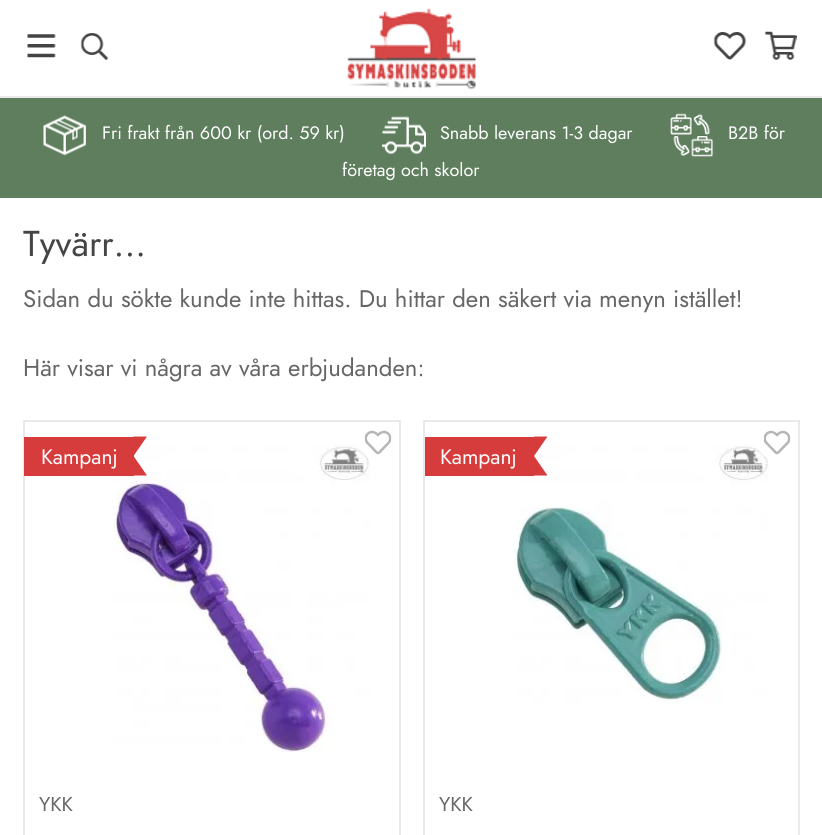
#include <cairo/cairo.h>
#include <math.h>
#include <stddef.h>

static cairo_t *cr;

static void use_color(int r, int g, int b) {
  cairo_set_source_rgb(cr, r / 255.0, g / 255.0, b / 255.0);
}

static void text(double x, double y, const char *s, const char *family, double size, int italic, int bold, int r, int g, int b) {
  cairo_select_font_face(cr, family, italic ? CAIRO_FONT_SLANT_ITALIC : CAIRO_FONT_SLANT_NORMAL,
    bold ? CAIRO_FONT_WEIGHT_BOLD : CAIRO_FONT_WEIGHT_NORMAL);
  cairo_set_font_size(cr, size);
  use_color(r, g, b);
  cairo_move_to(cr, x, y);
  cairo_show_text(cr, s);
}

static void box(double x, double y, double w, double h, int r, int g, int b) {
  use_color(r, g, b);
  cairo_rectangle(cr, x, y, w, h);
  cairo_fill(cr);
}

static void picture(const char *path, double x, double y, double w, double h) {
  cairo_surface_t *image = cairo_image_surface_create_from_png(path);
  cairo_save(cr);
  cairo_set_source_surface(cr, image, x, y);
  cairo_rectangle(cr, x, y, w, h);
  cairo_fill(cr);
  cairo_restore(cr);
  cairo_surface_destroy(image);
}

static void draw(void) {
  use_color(255, 255, 255);
  cairo_paint(cr);
  box(0, 96, 822, 2, 233, 233, 233);
  picture("img_01.png", 27, 34, 29, 24);
  picture("img_02.png", 80, 33, 29, 27);
  picture("img_03.png", 347, 8, 129, 81);
  picture("img_04.png", 713, 32, 33, 28);
  picture("img_05.png", 764, 31, 33, 29);
  box(0, 98, 822, 100, 94, 126, 93);
  picture("img_06.png", 43, 115, 43, 41);
  picture("img_07.png", 381, 116, 45, 39);
  picture("img_08.png", 670, 113, 44, 44);
  cairo_rectangle(cr, 24, 421, 376, 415);
  use_color(233, 233, 233);
  cairo_stroke(cr);
  picture("img_10.png", 112, 444, 258, 308);
  use_color(255, 255, 255);
  cairo_new_path(cr);
  cairo_move_to(cr, 399, 422);
  cairo_line_to(cr, 399, 489);
  cairo_line_to(cr, 332, 422);
  cairo_close_path(cr);
  cairo_fill(cr);
  picture("img_09.png", 364, 430, 28, 25);
  box(24, 437, 110, 39, 215, 60, 60);
  cairo_new_path(cr);
  cairo_move_to(cr, 133.5, 436.5);
  cairo_line_to(cr, 147, 436.5);
  cairo_line_to(cr, 133.5, 456);
  cairo_close_path(cr);
  cairo_move_to(cr, 147, 475.5);
  cairo_line_to(cr, 133.5, 475.5);
  cairo_line_to(cr, 133.5, 456);
  cairo_close_path(cr);
  cairo_fill(cr);
  cairo_rectangle(cr, 424, 421, 375, 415);
  use_color(233, 233, 233);
  cairo_stroke(cr);
  picture("img_12.png", 514, 445, 255, 260);
  use_color(255, 255, 255);
  cairo_new_path(cr);
  cairo_move_to(cr, 798, 422);
  cairo_line_to(cr, 798, 489);
  cairo_line_to(cr, 730, 422);
  cairo_close_path(cr);
  cairo_fill(cr);
  picture("img_11.png", 763, 430, 28, 25);
  box(425, 437, 109, 39, 215, 60, 60);
  cairo_new_path(cr);
  cairo_move_to(cr, 534, 436.5);
  cairo_line_to(cr, 547.5, 436.5);
  cairo_line_to(cr, 534, 456);
  cairo_close_path(cr);
  cairo_move_to(cr, 547.5, 475.5);
  cairo_line_to(cr, 534, 475.5);
  cairo_line_to(cr, 534, 456);
  cairo_close_path(cr);
  cairo_fill(cr);
  text(102, 139, "Fri frakt från 600 kr (ord. 59 kr)", "Jost", 18, 0, 0, 255, 255, 255);
  text(440, 139, "Snabb leverans 1-3 dagar", "Jost", 18, 0, 0, 255, 255, 255);
  text(728, 139, "B2B för", "Jost", 18, 0, 0, 255, 255, 255);
  text(342, 176, "företag och skolor", "Jost", 18, 0, 0, 255, 255, 255);
  cairo_save(cr);
  cairo_rectangle(cr, 23, 221, 777, 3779);
  cairo_clip(cr);
  text(23, 256, "Tyvärr...", "Jost", 36, 0, 0, 69, 69, 69);
  cairo_restore(cr);
  text(23, 307, "Sidan du sökte kunde inte hittas. Du hittar den säkert via menyn istället!", "Jost", 24, 0, 0, 102, 102, 102);
  text(23, 376, "Här visar vi några av våra erbjudanden:", "Jost", 24, 0, 0, 102, 102, 102);
  text(41, 464, "Kampanj", "Jost", 21, 0, 0, 255, 255, 255);
  text(39, 811, "YKK", "Jost", 20, 0, 0, 102, 102, 102);
  text(440, 464, "Kampanj", "Jost", 21, 0, 0, 255, 255, 255);
  text(439, 811, "YKK", "Jost", 20, 0, 0, 102, 102, 102);
}

int main(void) {
  cairo_surface_t *surface = cairo_image_surface_create(CAIRO_FORMAT_RGB24, 822, 835);
  cr = cairo_create(surface);
  cairo_font_options_t *options = cairo_font_options_create();
  cairo_font_options_set_hint_metrics(options, CAIRO_HINT_METRICS_OFF);
  cairo_font_options_set_hint_style(options, CAIRO_HINT_STYLE_NONE);
  cairo_set_font_options(cr, options);
  cairo_set_miter_limit(cr, 4);
  draw();
  cairo_surface_write_to_png(surface, "out.png");
  cairo_font_options_destroy(options);
  cairo_destroy(cr);
  cairo_surface_destroy(surface);
  return 0;
}
